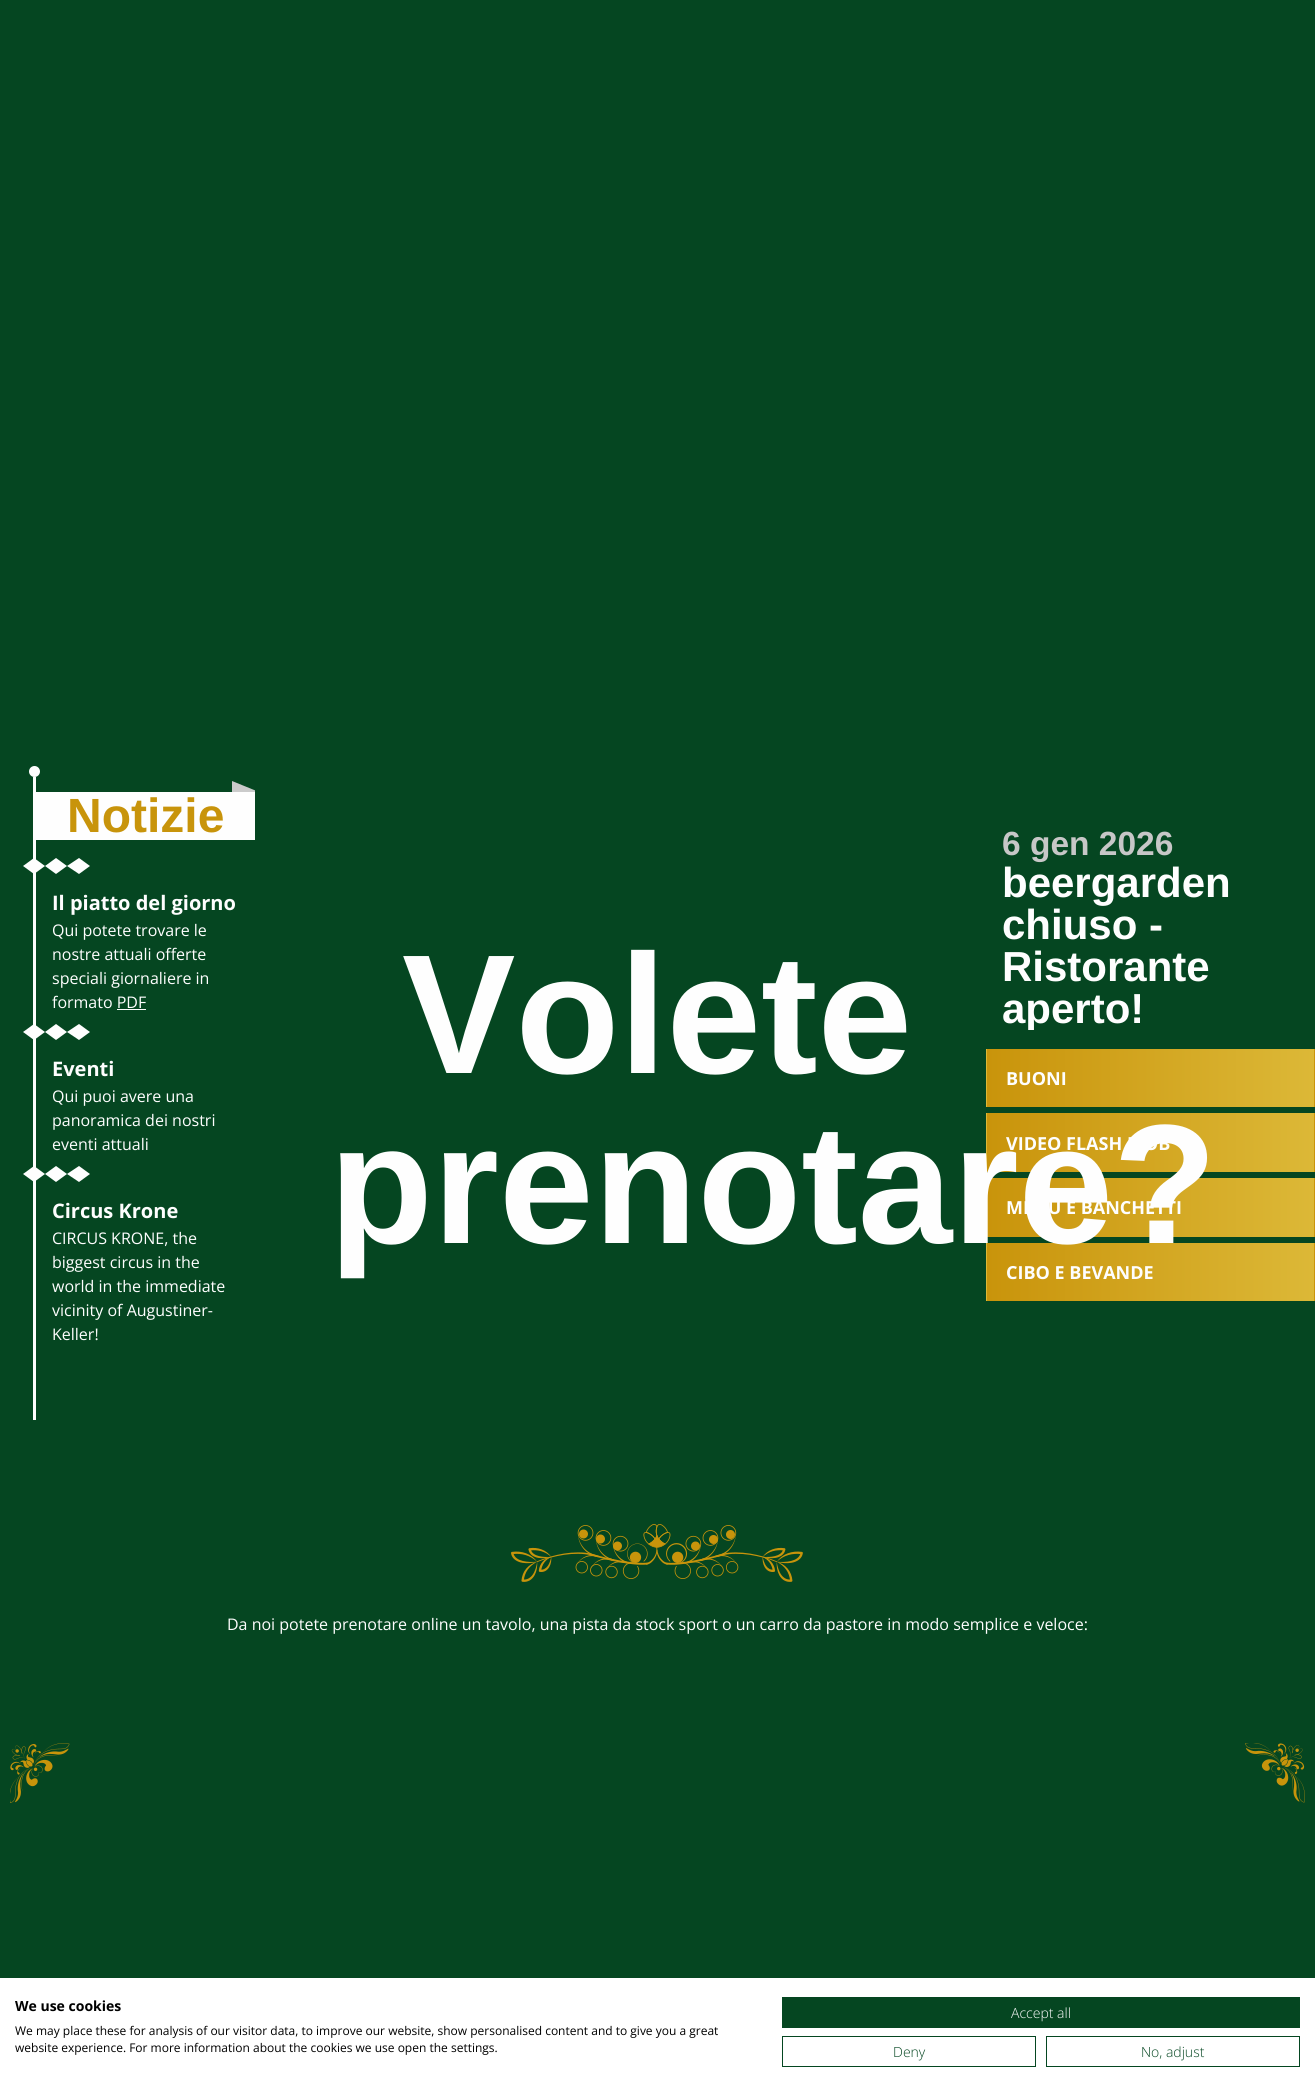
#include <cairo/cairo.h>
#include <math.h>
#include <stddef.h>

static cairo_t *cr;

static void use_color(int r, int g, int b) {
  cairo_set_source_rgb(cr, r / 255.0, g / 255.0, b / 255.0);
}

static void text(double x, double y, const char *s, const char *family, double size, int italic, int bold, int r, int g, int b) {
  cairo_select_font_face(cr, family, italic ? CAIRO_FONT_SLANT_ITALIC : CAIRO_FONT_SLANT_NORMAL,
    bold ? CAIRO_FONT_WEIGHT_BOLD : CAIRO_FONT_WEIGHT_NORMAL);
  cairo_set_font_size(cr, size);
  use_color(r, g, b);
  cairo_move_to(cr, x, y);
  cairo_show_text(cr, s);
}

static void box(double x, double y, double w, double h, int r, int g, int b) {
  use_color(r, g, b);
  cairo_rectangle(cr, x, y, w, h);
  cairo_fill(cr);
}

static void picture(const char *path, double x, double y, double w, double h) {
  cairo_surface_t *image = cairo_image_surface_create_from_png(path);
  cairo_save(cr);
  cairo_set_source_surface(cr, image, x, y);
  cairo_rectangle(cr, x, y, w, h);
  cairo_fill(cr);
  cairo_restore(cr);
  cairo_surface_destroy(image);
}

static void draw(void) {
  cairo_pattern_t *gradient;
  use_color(5, 70, 33);
  cairo_paint(cr);
  box(33, 777, 3, 643, 254, 254, 254);
  cairo_arc(cr, 34.5, 771.5, 5.5, 0, 2 * M_PI);
  cairo_fill(cr);
  cairo_save(cr);
  cairo_rectangle(cr, 35, 777, 220, 63);
  cairo_clip(cr);
  use_color(203, 203, 203);
  cairo_new_path(cr);
  cairo_move_to(cr, 232, 819);
  cairo_line_to(cr, 259, 830);
  cairo_line_to(cr, 259, 792);
  cairo_line_to(cr, 232, 781);
  cairo_close_path(cr);
  cairo_fill(cr);
  cairo_restore(cr);
  box(36, 792, 219, 48, 254, 254, 254);
  cairo_new_path(cr);
  cairo_move_to(cr, 23, 866);
  cairo_line_to(cr, 34, 874);
  cairo_line_to(cr, 45, 866);
  cairo_line_to(cr, 34, 858);
  cairo_close_path(cr);
  cairo_move_to(cr, 45, 866);
  cairo_line_to(cr, 56, 874);
  cairo_line_to(cr, 67, 866);
  cairo_line_to(cr, 56, 858);
  cairo_close_path(cr);
  cairo_move_to(cr, 67, 866);
  cairo_line_to(cr, 79, 874);
  cairo_line_to(cr, 90, 866);
  cairo_line_to(cr, 79, 858);
  cairo_close_path(cr);
  cairo_fill(cr);
  box(117, 1009, 29, 1, 254, 254, 254);
  cairo_new_path(cr);
  cairo_move_to(cr, 23, 1032);
  cairo_line_to(cr, 34, 1040);
  cairo_line_to(cr, 45, 1032);
  cairo_line_to(cr, 34, 1024);
  cairo_close_path(cr);
  cairo_move_to(cr, 45, 1032);
  cairo_line_to(cr, 56, 1040);
  cairo_line_to(cr, 67, 1032);
  cairo_line_to(cr, 56, 1024);
  cairo_close_path(cr);
  cairo_move_to(cr, 67, 1032);
  cairo_line_to(cr, 79, 1040);
  cairo_line_to(cr, 90, 1032);
  cairo_line_to(cr, 79, 1024);
  cairo_close_path(cr);
  cairo_fill(cr);
  cairo_new_path(cr);
  cairo_move_to(cr, 23, 1174);
  cairo_line_to(cr, 34, 1182);
  cairo_line_to(cr, 45, 1174);
  cairo_line_to(cr, 34, 1166);
  cairo_close_path(cr);
  cairo_move_to(cr, 45, 1174);
  cairo_line_to(cr, 56, 1182);
  cairo_line_to(cr, 67, 1174);
  cairo_line_to(cr, 56, 1166);
  cairo_close_path(cr);
  cairo_move_to(cr, 67, 1174);
  cairo_line_to(cr, 79, 1182);
  cairo_line_to(cr, 90, 1174);
  cairo_line_to(cr, 79, 1166);
  cairo_close_path(cr);
  cairo_fill(cr);
  gradient = cairo_pattern_create_linear(660, 1078, 987, 1078);
  cairo_pattern_add_color_stop_rgba(gradient, 0, 0.788, 0.58, 0.043, 1);
  cairo_pattern_add_color_stop_rgba(gradient, 1, 0.863, 0.722, 0.216, 1);
  cairo_set_source(cr, gradient);
  cairo_pattern_destroy(gradient);
  cairo_rectangle(cr, 986, 1049, 1, 58);
  cairo_fill(cr);
  gradient = cairo_pattern_create_linear(987, 1078, 1314, 1078);
  cairo_pattern_add_color_stop_rgba(gradient, 0, 0.788, 0.58, 0.043, 1);
  cairo_pattern_add_color_stop_rgba(gradient, 1, 0.863, 0.722, 0.216, 1);
  cairo_set_source(cr, gradient);
  cairo_pattern_destroy(gradient);
  cairo_rectangle(cr, 987, 1049, 327, 58);
  cairo_fill(cr);
  gradient = cairo_pattern_create_linear(1314, 1078, 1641, 1078);
  cairo_pattern_add_color_stop_rgba(gradient, 0, 0.788, 0.58, 0.043, 1);
  cairo_pattern_add_color_stop_rgba(gradient, 1, 0.863, 0.722, 0.216, 1);
  cairo_set_source(cr, gradient);
  cairo_pattern_destroy(gradient);
  cairo_rectangle(cr, 1314, 1049, 1, 58);
  cairo_fill(cr);
  gradient = cairo_pattern_create_linear(660, 1143, 987, 1143);
  cairo_pattern_add_color_stop_rgba(gradient, 0, 0.788, 0.58, 0.043, 1);
  cairo_pattern_add_color_stop_rgba(gradient, 1, 0.863, 0.722, 0.216, 1);
  cairo_set_source(cr, gradient);
  cairo_pattern_destroy(gradient);
  cairo_rectangle(cr, 986, 1113, 1, 59);
  cairo_fill(cr);
  gradient = cairo_pattern_create_linear(987, 1143, 1314, 1143);
  cairo_pattern_add_color_stop_rgba(gradient, 0, 0.788, 0.58, 0.043, 1);
  cairo_pattern_add_color_stop_rgba(gradient, 1, 0.863, 0.722, 0.216, 1);
  cairo_set_source(cr, gradient);
  cairo_pattern_destroy(gradient);
  cairo_rectangle(cr, 987, 1113, 327, 59);
  cairo_fill(cr);
  gradient = cairo_pattern_create_linear(1314, 1143, 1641, 1143);
  cairo_pattern_add_color_stop_rgba(gradient, 0, 0.788, 0.58, 0.043, 1);
  cairo_pattern_add_color_stop_rgba(gradient, 1, 0.863, 0.722, 0.216, 1);
  cairo_set_source(cr, gradient);
  cairo_pattern_destroy(gradient);
  cairo_rectangle(cr, 1314, 1113, 1, 59);
  cairo_fill(cr);
  gradient = cairo_pattern_create_linear(660, 1208, 987, 1208);
  cairo_pattern_add_color_stop_rgba(gradient, 0, 0.788, 0.58, 0.043, 1);
  cairo_pattern_add_color_stop_rgba(gradient, 1, 0.863, 0.722, 0.216, 1);
  cairo_set_source(cr, gradient);
  cairo_pattern_destroy(gradient);
  cairo_rectangle(cr, 986, 1178, 1, 59);
  cairo_fill(cr);
  gradient = cairo_pattern_create_linear(987, 1208, 1314, 1208);
  cairo_pattern_add_color_stop_rgba(gradient, 0, 0.788, 0.58, 0.043, 1);
  cairo_pattern_add_color_stop_rgba(gradient, 1, 0.863, 0.722, 0.216, 1);
  cairo_set_source(cr, gradient);
  cairo_pattern_destroy(gradient);
  cairo_rectangle(cr, 987, 1178, 327, 59);
  cairo_fill(cr);
  gradient = cairo_pattern_create_linear(1314, 1208, 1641, 1208);
  cairo_pattern_add_color_stop_rgba(gradient, 0, 0.788, 0.58, 0.043, 1);
  cairo_pattern_add_color_stop_rgba(gradient, 1, 0.863, 0.722, 0.216, 1);
  cairo_set_source(cr, gradient);
  cairo_pattern_destroy(gradient);
  cairo_rectangle(cr, 1314, 1178, 1, 59);
  cairo_fill(cr);
  gradient = cairo_pattern_create_linear(660, 1272, 987, 1272);
  cairo_pattern_add_color_stop_rgba(gradient, 0, 0.788, 0.58, 0.043, 1);
  cairo_pattern_add_color_stop_rgba(gradient, 1, 0.863, 0.722, 0.216, 1);
  cairo_set_source(cr, gradient);
  cairo_pattern_destroy(gradient);
  cairo_rectangle(cr, 986, 1243, 1, 58);
  cairo_fill(cr);
  gradient = cairo_pattern_create_linear(987, 1272, 1314, 1272);
  cairo_pattern_add_color_stop_rgba(gradient, 0, 0.788, 0.58, 0.043, 1);
  cairo_pattern_add_color_stop_rgba(gradient, 1, 0.863, 0.722, 0.216, 1);
  cairo_set_source(cr, gradient);
  cairo_pattern_destroy(gradient);
  cairo_rectangle(cr, 987, 1243, 327, 58);
  cairo_fill(cr);
  gradient = cairo_pattern_create_linear(1314, 1272, 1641, 1272);
  cairo_pattern_add_color_stop_rgba(gradient, 0, 0.788, 0.58, 0.043, 1);
  cairo_pattern_add_color_stop_rgba(gradient, 1, 0.863, 0.722, 0.216, 1);
  cairo_set_source(cr, gradient);
  cairo_pattern_destroy(gradient);
  cairo_rectangle(cr, 1314, 1243, 1, 58);
  cairo_fill(cr);
  picture("img_01.png", 511, 1524, 292, 58);
  picture("img_02.png", 10, 1743, 60, 60);
  picture("img_03.png", 1245, 1743, 60, 60);
  box(0, 1978, 1315, 116, 255, 255, 255);
  box(782, 1997, 518, 31, 5, 70, 33);
  cairo_rectangle(cr, 782.5, 2036.5, 253, 30);
  cairo_set_line_width(cr, 1);
  cairo_stroke(cr);
  cairo_rectangle(cr, 1046.5, 2036.5, 253, 30);
  cairo_stroke(cr);
  text(67, 832, "Notizie", "Liberation Sans", 48, 0, 1, 200, 148, 11);
  text(52, 910, "Il piatto del giorno", "Open Sans", 20, 0, 1, 254, 254, 254);
  text(52, 936, "Qui potete trovare le", "Open Sans", 16, 0, 0, 254, 254, 254);
  text(52, 960, "nostre attuali offerte", "Open Sans", 16, 0, 0, 254, 254, 254);
  text(52, 984, "speciali giornaliere in", "Open Sans", 16, 0, 0, 254, 254, 254);
  text(52, 1008, "formato PDF", "Open Sans", 16, 0, 0, 254, 254, 254);
  text(52, 1076, "Eventi", "Open Sans", 20, 0, 1, 254, 254, 254);
  text(52, 1102, "Qui puoi avere una", "Open Sans", 16, 0, 0, 254, 254, 254);
  text(52, 1126, "panoramica dei nostri", "Open Sans", 16, 0, 0, 254, 254, 254);
  text(52, 1150, "eventi attuali", "Open Sans", 16, 0, 0, 254, 254, 254);
  text(52, 1218, "Circus Krone", "Open Sans", 20, 0, 1, 254, 254, 254);
  text(52, 1244, "CIRCUS KRONE, the", "Open Sans", 16, 0, 0, 254, 254, 254);
  text(52, 1268, "biggest circus in the", "Open Sans", 16, 0, 0, 254, 254, 254);
  text(52, 1292, "world in the immediate", "Open Sans", 16, 0, 0, 254, 254, 254);
  text(52, 1316, "vicinity of Augustiner-", "Open Sans", 16, 0, 0, 254, 254, 254);
  text(52, 1340, "Keller!", "Open Sans", 16, 0, 0, 254, 254, 254);
  text(1002, 855, "6 gen 2026", "Liberation Sans", 33.5, 0, 1, 199, 199, 199);
  text(1002, 897, "beergarden", "Liberation Sans", 42, 0, 1, 254, 254, 254);
  text(1002, 939, "chiuso -", "Liberation Sans", 42, 0, 1, 254, 254, 254);
  text(1002, 981, "Ristorante", "Liberation Sans", 42, 0, 1, 254, 254, 254);
  cairo_save(cr);
  cairo_rectangle(cr, 986, 805, 329, 225);
  cairo_clip(cr);
  text(1002, 1023, "aperto!", "Liberation Sans", 42, 0, 1, 254, 254, 254);
  cairo_restore(cr);
  text(1006, 1085, "BUONI", "Open Sans", 18, 0, 1, 254, 254, 254);
  text(1006, 1150, "VIDEO FLASH MOB", "Open Sans", 18, 0, 1, 254, 254, 254);
  text(1006, 1214, "MENÙ E BANCHETTI", "Open Sans", 18, 0, 1, 254, 254, 254);
  text(1006, 1279, "CIBO E BEVANDE", "Open Sans", 18, 0, 1, 254, 254, 254);
  text(402, 1073, "Volete", "Liberation Sans", 170, 0, 1, 254, 254, 254);
  text(329, 1243, "prenotare?", "Liberation Sans", 170, 0, 1, 254, 254, 254);
  text(227, 1630, "Da noi potete prenotare online un tavolo, una pista da stock sport o un carro da pastore in modo semplice e veloce:", "Open Sans", 16, 0, 0, 254, 254, 254);
  text(15, 2011, "We use cookies", "Open Sans", 14, 0, 1, 0, 0, 0);
  text(15, 2035, "We may place these for analysis of our visitor data, to improve our website, show personalised content and to give you a great", "Open Sans", 12, 0, 0, 0, 0, 0);
  text(15, 2052, "website experience. For more information about the cookies we use open the settings.", "Open Sans", 12, 0, 0, 0, 0, 0);
  text(1011, 2018, "Accept all", "Open Sans Light", 14, 0, 0, 254, 254, 254);
  text(893, 2057, "Deny", "Open Sans Light", 14, 0, 0, 5, 70, 33);
  text(1141, 2057, "No, adjust", "Open Sans Light", 14, 0, 0, 5, 70, 33);
}

int main(void) {
  cairo_surface_t *surface = cairo_image_surface_create(CAIRO_FORMAT_RGB24, 1315, 2094);
  cr = cairo_create(surface);
  cairo_font_options_t *options = cairo_font_options_create();
  cairo_font_options_set_hint_metrics(options, CAIRO_HINT_METRICS_OFF);
  cairo_font_options_set_hint_style(options, CAIRO_HINT_STYLE_NONE);
  cairo_set_font_options(cr, options);
  cairo_set_miter_limit(cr, 4);
  draw();
  cairo_surface_write_to_png(surface, "out.png");
  cairo_font_options_destroy(options);
  cairo_destroy(cr);
  cairo_surface_destroy(surface);
  return 0;
}
